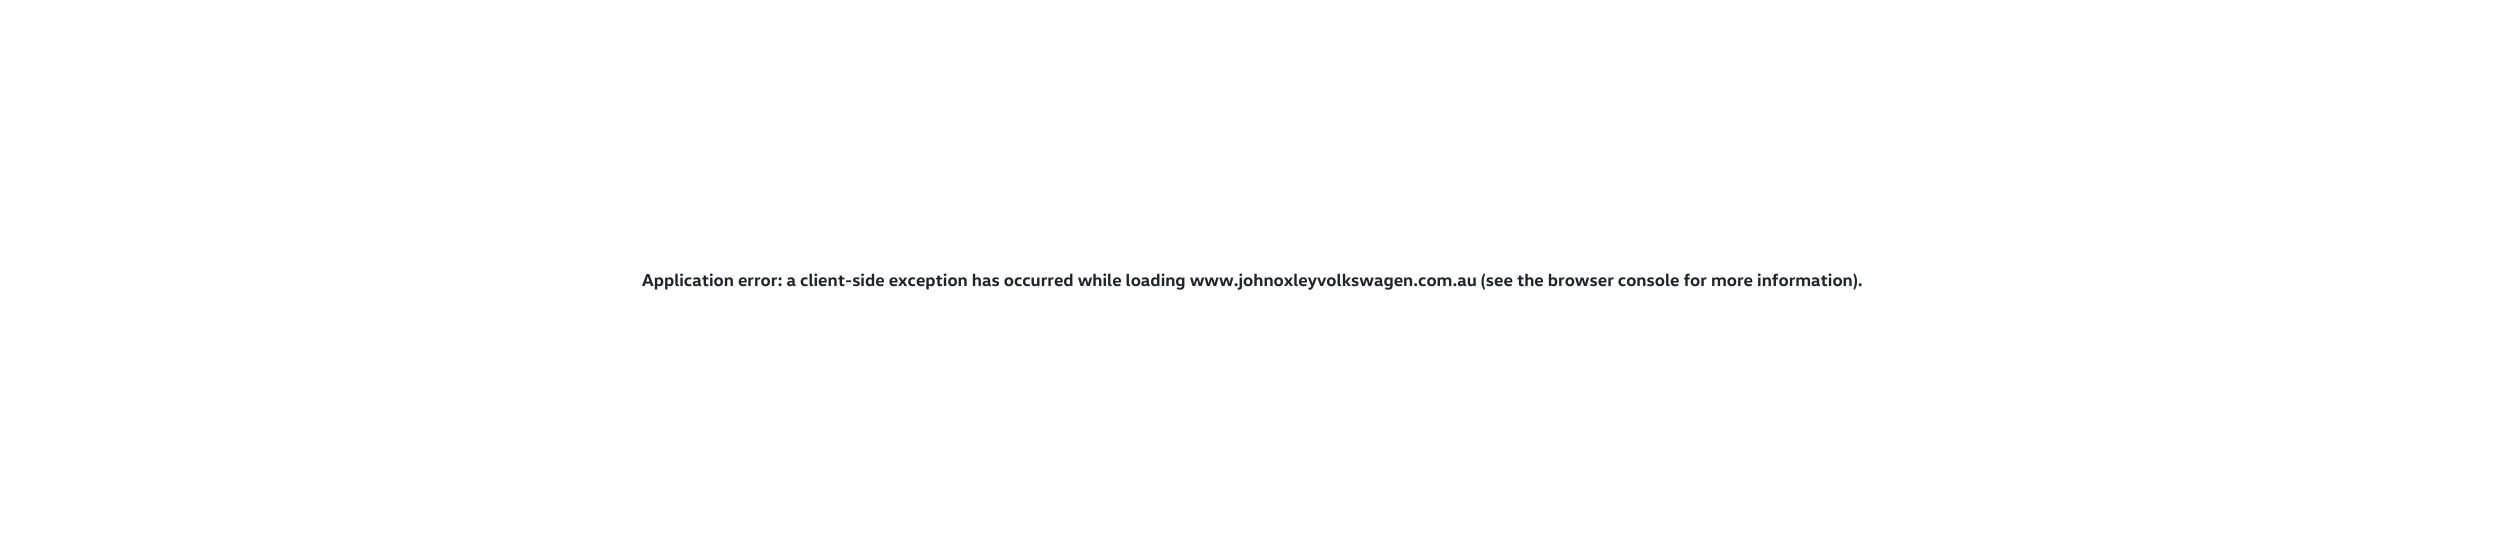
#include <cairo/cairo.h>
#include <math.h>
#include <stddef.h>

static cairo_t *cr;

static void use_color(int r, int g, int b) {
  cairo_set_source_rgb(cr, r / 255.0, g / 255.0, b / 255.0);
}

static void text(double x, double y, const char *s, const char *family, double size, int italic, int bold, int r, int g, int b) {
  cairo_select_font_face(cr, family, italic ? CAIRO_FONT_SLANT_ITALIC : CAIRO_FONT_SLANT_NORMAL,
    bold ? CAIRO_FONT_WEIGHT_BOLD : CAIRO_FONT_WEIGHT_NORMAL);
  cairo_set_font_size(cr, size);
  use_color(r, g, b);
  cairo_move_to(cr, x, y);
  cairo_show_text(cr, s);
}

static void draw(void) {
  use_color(255, 255, 255);
  cairo_paint(cr);
  text(642, 286, "Application error: a client-side exception has occurred while loading www.johnoxleyvolkswagen.com.au (see the browser console for more information).", "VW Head", 17.5, 0, 1, 33, 37, 41);
}

int main(void) {
  cairo_surface_t *surface = cairo_image_surface_create(CAIRO_FORMAT_RGB24, 2505, 558);
  cr = cairo_create(surface);
  cairo_font_options_t *options = cairo_font_options_create();
  cairo_font_options_set_hint_metrics(options, CAIRO_HINT_METRICS_OFF);
  cairo_font_options_set_hint_style(options, CAIRO_HINT_STYLE_NONE);
  cairo_set_font_options(cr, options);
  cairo_set_miter_limit(cr, 4);
  draw();
  cairo_surface_write_to_png(surface, "out.png");
  cairo_font_options_destroy(options);
  cairo_destroy(cr);
  cairo_surface_destroy(surface);
  return 0;
}
